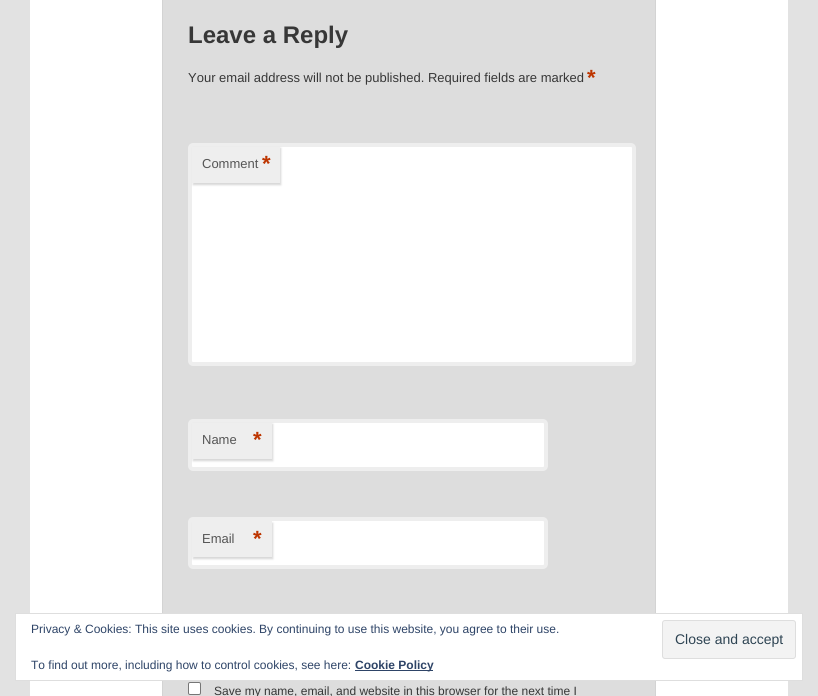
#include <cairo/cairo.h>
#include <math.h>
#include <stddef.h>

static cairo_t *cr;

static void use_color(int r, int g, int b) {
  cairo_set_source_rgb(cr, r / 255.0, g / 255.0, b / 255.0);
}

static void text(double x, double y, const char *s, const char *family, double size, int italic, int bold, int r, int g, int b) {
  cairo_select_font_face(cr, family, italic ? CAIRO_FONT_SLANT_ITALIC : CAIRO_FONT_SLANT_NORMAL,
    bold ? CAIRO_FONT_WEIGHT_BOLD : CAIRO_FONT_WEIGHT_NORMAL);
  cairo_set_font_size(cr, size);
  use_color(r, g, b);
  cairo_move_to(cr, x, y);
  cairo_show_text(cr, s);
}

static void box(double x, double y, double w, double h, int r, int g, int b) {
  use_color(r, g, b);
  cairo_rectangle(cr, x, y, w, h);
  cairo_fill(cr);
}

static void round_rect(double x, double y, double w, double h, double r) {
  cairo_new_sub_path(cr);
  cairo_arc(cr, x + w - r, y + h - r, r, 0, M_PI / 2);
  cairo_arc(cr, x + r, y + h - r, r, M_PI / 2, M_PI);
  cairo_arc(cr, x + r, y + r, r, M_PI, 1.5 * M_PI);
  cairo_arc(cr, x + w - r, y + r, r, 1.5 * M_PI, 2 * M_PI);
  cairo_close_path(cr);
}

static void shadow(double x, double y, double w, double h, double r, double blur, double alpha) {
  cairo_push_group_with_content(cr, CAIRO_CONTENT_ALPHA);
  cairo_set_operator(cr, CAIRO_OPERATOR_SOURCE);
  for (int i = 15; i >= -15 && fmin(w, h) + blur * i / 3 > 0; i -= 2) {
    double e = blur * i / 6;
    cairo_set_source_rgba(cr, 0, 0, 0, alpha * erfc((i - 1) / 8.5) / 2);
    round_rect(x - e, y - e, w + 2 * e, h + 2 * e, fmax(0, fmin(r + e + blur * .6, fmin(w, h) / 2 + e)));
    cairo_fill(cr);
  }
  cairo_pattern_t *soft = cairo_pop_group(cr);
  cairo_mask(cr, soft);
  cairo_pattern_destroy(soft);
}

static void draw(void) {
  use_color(226, 226, 226);
  cairo_paint(cr);
  box(30, 0, 758, 696, 255, 255, 255);
  use_color(221, 221, 221);
  cairo_rectangle(cr, 162.5, -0.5, 493, 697);
  cairo_fill_preserve(cr);
  use_color(211, 211, 211);
  cairo_set_line_width(cr, 1);
  cairo_stroke(cr);
  use_color(255, 255, 255);
  round_rect(190, 145, 444, 219, 3);
  cairo_fill_preserve(cr);
  use_color(238, 238, 238);
  cairo_set_line_width(cr, 4);
  cairo_stroke(cr);
  use_color(204, 204, 204);
  shadow(193, 148, 88, 37, 0, 1, 0.8);
  box(192, 147, 88, 36, 238, 238, 238);
  use_color(255, 255, 255);
  round_rect(190, 421, 356, 48, 3);
  cairo_fill_preserve(cr);
  use_color(238, 238, 238);
  cairo_stroke(cr);
  use_color(204, 204, 204);
  shadow(193, 424, 80, 37, 0, 1, 0.8);
  box(192, 423, 80, 36, 238, 238, 238);
  use_color(255, 255, 255);
  round_rect(190, 519, 356, 48, 3);
  cairo_fill_preserve(cr);
  use_color(238, 238, 238);
  cairo_stroke(cr);
  use_color(204, 204, 204);
  shadow(193, 523, 80, 36, 0, 1, 0.8);
  box(192, 521, 80, 36, 238, 238, 238);
  use_color(255, 255, 255);
  round_rect(188.5, 682.5, 12, 12, 1.5);
  cairo_fill_preserve(cr);
  use_color(118, 118, 118);
  cairo_set_line_width(cr, 1);
  cairo_stroke(cr);
  use_color(255, 255, 255);
  cairo_rectangle(cr, 15.5, 613.5, 787, 67);
  cairo_fill_preserve(cr);
  use_color(222, 222, 222);
  cairo_stroke(cr);
  use_color(243, 243, 243);
  round_rect(662.5, 620.5, 133, 38, 2.5);
  cairo_fill_preserve(cr);
  use_color(222, 222, 222);
  cairo_stroke(cr);
  box(355, 670, 78, 1, 46, 68, 103);
  text(188, 43, "Leave a Reply", "Liberation Sans", 24, 0, 1, 55, 55, 55);
  text(188, 82, "Your email address will not be published. Required fields are marked", "Liberation Sans", 13, 0, 0, 55, 55, 55);
  text(587, 85, "*", "Liberation Sans", 22, 0, 1, 189, 53, 0);
  text(202, 168, "Comment", "Liberation Sans", 13, 0, 0, 85, 85, 85);
  text(262, 171, "*", "Liberation Sans", 22, 0, 1, 189, 53, 0);
  text(202, 444, "Name", "Liberation Sans", 13, 0, 0, 85, 85, 85);
  text(253, 447, "*", "Liberation Sans", 22, 0, 1, 189, 53, 0);
  text(202, 543, "Email", "Liberation Sans", 13, 0, 0, 85, 85, 85);
  text(253, 546, "*", "Liberation Sans", 22, 0, 1, 189, 53, 0);
  text(214, 695, "Save my name, email, and website in this browser for the next time I", "Liberation Sans", 12, 0, 0, 55, 55, 55);
  text(31, 633, "Privacy & Cookies: This site uses cookies. By continuing to use this website, you agree to their use.", "Liberation Sans", 12, 0, 0, 46, 68, 103);
  text(675, 644, "Close and accept", "Liberation Sans", 14, 0, 0, 46, 68, 83);
  text(31, 669, "To find out more, including how to control cookies, see here:", "Liberation Sans", 12, 0, 0, 46, 68, 103);
  text(355, 669, "Cookie Policy", "Liberation Sans", 12, 0, 1, 46, 68, 103);
}

int main(void) {
  cairo_surface_t *surface = cairo_image_surface_create(CAIRO_FORMAT_RGB24, 818, 696);
  cr = cairo_create(surface);
  cairo_font_options_t *options = cairo_font_options_create();
  cairo_font_options_set_hint_metrics(options, CAIRO_HINT_METRICS_OFF);
  cairo_font_options_set_hint_style(options, CAIRO_HINT_STYLE_NONE);
  cairo_set_font_options(cr, options);
  cairo_set_miter_limit(cr, 4);
  draw();
  cairo_surface_write_to_png(surface, "out.png");
  cairo_font_options_destroy(options);
  cairo_destroy(cr);
  cairo_surface_destroy(surface);
  return 0;
}
